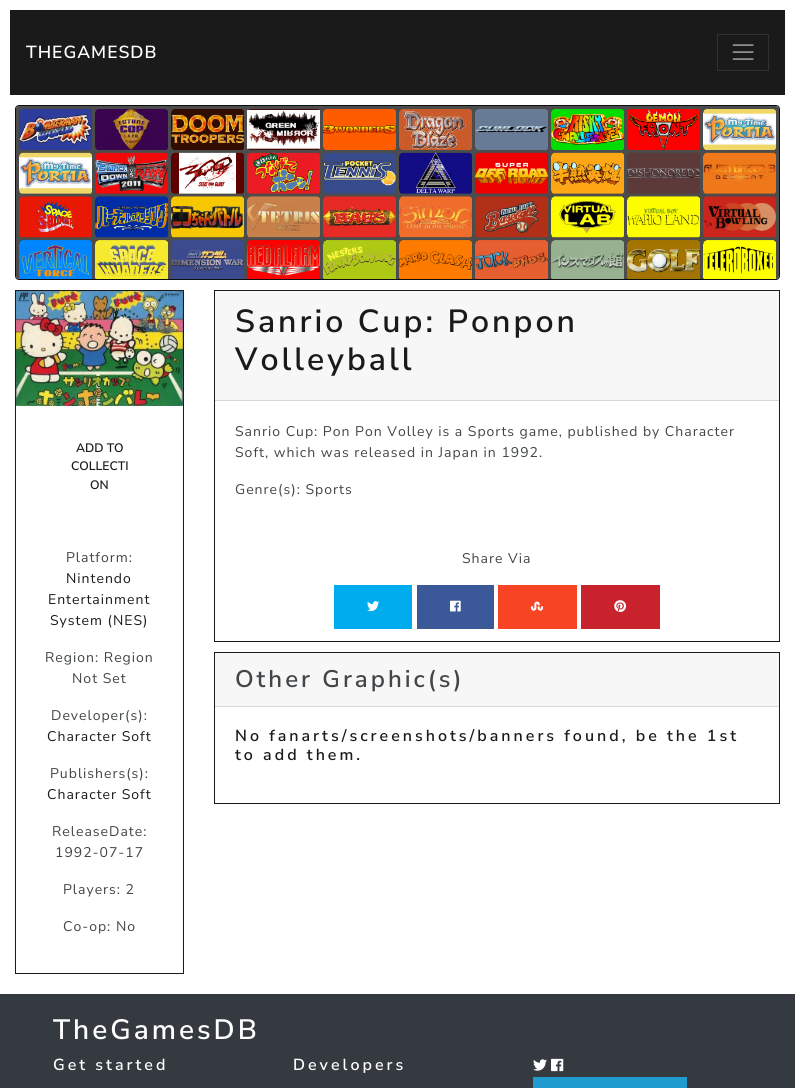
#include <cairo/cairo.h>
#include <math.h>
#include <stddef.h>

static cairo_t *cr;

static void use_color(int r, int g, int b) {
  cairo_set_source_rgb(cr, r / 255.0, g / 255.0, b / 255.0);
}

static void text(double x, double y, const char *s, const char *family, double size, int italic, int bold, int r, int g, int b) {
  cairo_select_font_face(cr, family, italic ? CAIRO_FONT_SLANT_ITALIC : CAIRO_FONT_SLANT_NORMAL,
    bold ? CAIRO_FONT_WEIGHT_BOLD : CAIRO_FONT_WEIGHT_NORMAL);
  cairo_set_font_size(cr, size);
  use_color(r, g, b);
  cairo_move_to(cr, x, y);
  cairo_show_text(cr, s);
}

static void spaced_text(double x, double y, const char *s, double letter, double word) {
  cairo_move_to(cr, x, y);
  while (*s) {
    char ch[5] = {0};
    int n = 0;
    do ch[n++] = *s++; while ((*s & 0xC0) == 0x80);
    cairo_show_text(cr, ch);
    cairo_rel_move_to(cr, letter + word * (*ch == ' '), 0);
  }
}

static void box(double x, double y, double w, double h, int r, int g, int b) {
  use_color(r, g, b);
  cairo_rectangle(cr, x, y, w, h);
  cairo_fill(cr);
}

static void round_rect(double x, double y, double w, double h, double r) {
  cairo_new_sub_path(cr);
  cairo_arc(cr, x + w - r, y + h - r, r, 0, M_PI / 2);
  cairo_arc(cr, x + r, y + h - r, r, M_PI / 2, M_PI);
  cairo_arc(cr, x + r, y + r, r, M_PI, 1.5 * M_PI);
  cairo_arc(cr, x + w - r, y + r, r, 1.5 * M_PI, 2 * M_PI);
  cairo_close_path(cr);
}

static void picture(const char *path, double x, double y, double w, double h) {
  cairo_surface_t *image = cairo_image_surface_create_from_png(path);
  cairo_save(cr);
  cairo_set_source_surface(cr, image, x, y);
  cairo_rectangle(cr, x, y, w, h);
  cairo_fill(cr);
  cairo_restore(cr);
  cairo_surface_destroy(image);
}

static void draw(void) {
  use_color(255, 255, 255);
  cairo_paint(cr);
  box(10, 10, 775, 85, 26, 26, 26);
  cairo_rectangle(cr, 717.5, 34.5, 51, 36);
  use_color(49, 49, 49);
  cairo_set_line_width(cr, 1);
  cairo_stroke(cr);
  picture("img_01.png", 732, 44, 22, 16);
  round_rect(15.5, 105.5, 764, 174, 3.5);
  use_color(12, 13, 14);
  cairo_stroke(cr);
  picture("img_02.png", 16, 106, 763, 173);
  cairo_rectangle(cr, 15.5, 290.5, 168, 683);
  use_color(26, 26, 26);
  cairo_stroke(cr);
  picture("img_03.png", 16, 291, 167, 115);
  cairo_rectangle(cr, 214.5, 290.5, 565, 351);
  cairo_stroke(cr);
  box(215, 291, 564, 109, 247, 247, 247);
  box(215, 400, 564, 1, 216, 216, 216);
  box(334, 585, 78, 44, 0, 172, 238);
  picture("img_04.png", 367, 601, 13, 11);
  box(417, 585, 77, 44, 59, 89, 152);
  picture("img_05.png", 450, 600, 11, 12);
  box(498, 585, 79, 44, 247, 68, 37);
  picture("img_06.png", 531, 601, 13, 10);
  box(581, 585, 79, 44, 200, 35, 44);
  picture("img_07.png", 614, 600, 13, 13);
  cairo_rectangle(cr, 214.5, 652.5, 565, 151);
  use_color(26, 26, 26);
  cairo_stroke(cr);
  box(215, 653, 564, 53, 247, 247, 247);
  box(215, 706, 564, 1, 216, 216, 216);
  box(0, 994, 795, 94, 52, 58, 64);
  picture("img_08.png", 533, 1059, 14, 12);
  picture("img_09.png", 551, 1058, 13, 14);
  box(533, 1077, 154, 11, 31, 155, 207);
  cairo_select_font_face(cr, "Nunito Sans SemiBold", CAIRO_FONT_SLANT_NORMAL, CAIRO_FONT_WEIGHT_NORMAL);
  cairo_set_font_size(cr, 17.5);
  use_color(255, 255, 255);
  spaced_text(26, 58, "THEGAMESDB", 1, 0);
  text(76, 452, "ADD TO", "Nunito Sans SemiBold", 12.25, 0, 0, 26, 26, 26);
  text(71, 470, "COLLECTI", "Nunito Sans SemiBold", 12.25, 0, 0, 26, 26, 26);
  text(90, 489, "ON", "Nunito Sans SemiBold", 12.25, 0, 0, 26, 26, 26);
  cairo_select_font_face(cr, "Nunito Sans", CAIRO_FONT_SLANT_NORMAL, CAIRO_FONT_WEIGHT_NORMAL);
  cairo_set_font_size(cr, 14);
  use_color(66, 70, 73);
  spaced_text(66, 562, "Platform:", 1, 0);
  use_color(26, 26, 26);
  spaced_text(66, 583, "Nintendo", 1, 0);
  spaced_text(48, 604, "Entertainment", 1, 0);
  spaced_text(50, 625, "System (NES)", 1, 0);
  use_color(66, 70, 73);
  spaced_text(45, 662, "Region: Region", 1, 0);
  spaced_text(72, 683, "Not Set", 1, 0);
  spaced_text(51, 720, "Developer(s):", 1, 0);
  use_color(26, 26, 26);
  spaced_text(47, 741, "Character Soft", 1, 0);
  use_color(66, 70, 73);
  spaced_text(50, 778, "Publishers(s):", 1, 0);
  use_color(26, 26, 26);
  spaced_text(47, 799, "Character Soft", 1, 0);
  use_color(66, 70, 73);
  spaced_text(52, 836, "ReleaseDate:", 1, 0);
  spaced_text(55, 857, "1992-07-17", 1, 0);
  spaced_text(63, 894, "Players: 2", 1, 0);
  spaced_text(63, 931, "Co-op: No", 1, 0);
  cairo_select_font_face(cr, "Nunito Sans SemiBold", CAIRO_FONT_SLANT_NORMAL, CAIRO_FONT_WEIGHT_NORMAL);
  cairo_set_font_size(cr, 32);
  use_color(26, 26, 26);
  spaced_text(235, 332, "Sanrio Cup: Ponpon", 3, 0);
  spaced_text(235, 370, "Volleyball", 3, 0);
  cairo_select_font_face(cr, "Nunito Sans", CAIRO_FONT_SLANT_NORMAL, CAIRO_FONT_WEIGHT_NORMAL);
  cairo_set_font_size(cr, 14);
  use_color(66, 70, 73);
  spaced_text(235, 436, "Sanrio Cup: Pon Pon Volley is a Sports game, published by Character", 1, 0);
  spaced_text(235, 457, "Soft, which was released in Japan in 1992.", 1, 0);
  spaced_text(235, 494, "Genre(s): Sports", 1, 0);
  spaced_text(462, 563, "Share Via", 1, 0);
  cairo_select_font_face(cr, "Nunito Sans SemiBold", CAIRO_FONT_SLANT_NORMAL, CAIRO_FONT_WEIGHT_NORMAL);
  cairo_set_font_size(cr, 24);
  spaced_text(235, 687, "Other Graphic(s)", 3, 0);
  cairo_set_font_size(cr, 16);
  use_color(26, 26, 26);
  spaced_text(235, 741, "No fanarts/screenshots/banners found, be the 1st", 3, 0);
  spaced_text(235, 760, "to add them.", 3, 0);
  cairo_set_font_size(cr, 28);
  use_color(255, 255, 255);
  spaced_text(53, 1039, "TheGamesDB", 3, 0);
  cairo_set_font_size(cr, 16);
  spaced_text(53, 1070, "Get started", 3, 0);
  spaced_text(293, 1070, "Developers", 3, 0);
}

int main(void) {
  cairo_surface_t *surface = cairo_image_surface_create(CAIRO_FORMAT_RGB24, 795, 1088);
  cr = cairo_create(surface);
  cairo_font_options_t *options = cairo_font_options_create();
  cairo_font_options_set_hint_metrics(options, CAIRO_HINT_METRICS_OFF);
  cairo_font_options_set_hint_style(options, CAIRO_HINT_STYLE_NONE);
  cairo_set_font_options(cr, options);
  cairo_set_miter_limit(cr, 4);
  draw();
  cairo_surface_write_to_png(surface, "out.png");
  cairo_font_options_destroy(options);
  cairo_destroy(cr);
  cairo_surface_destroy(surface);
  return 0;
}
